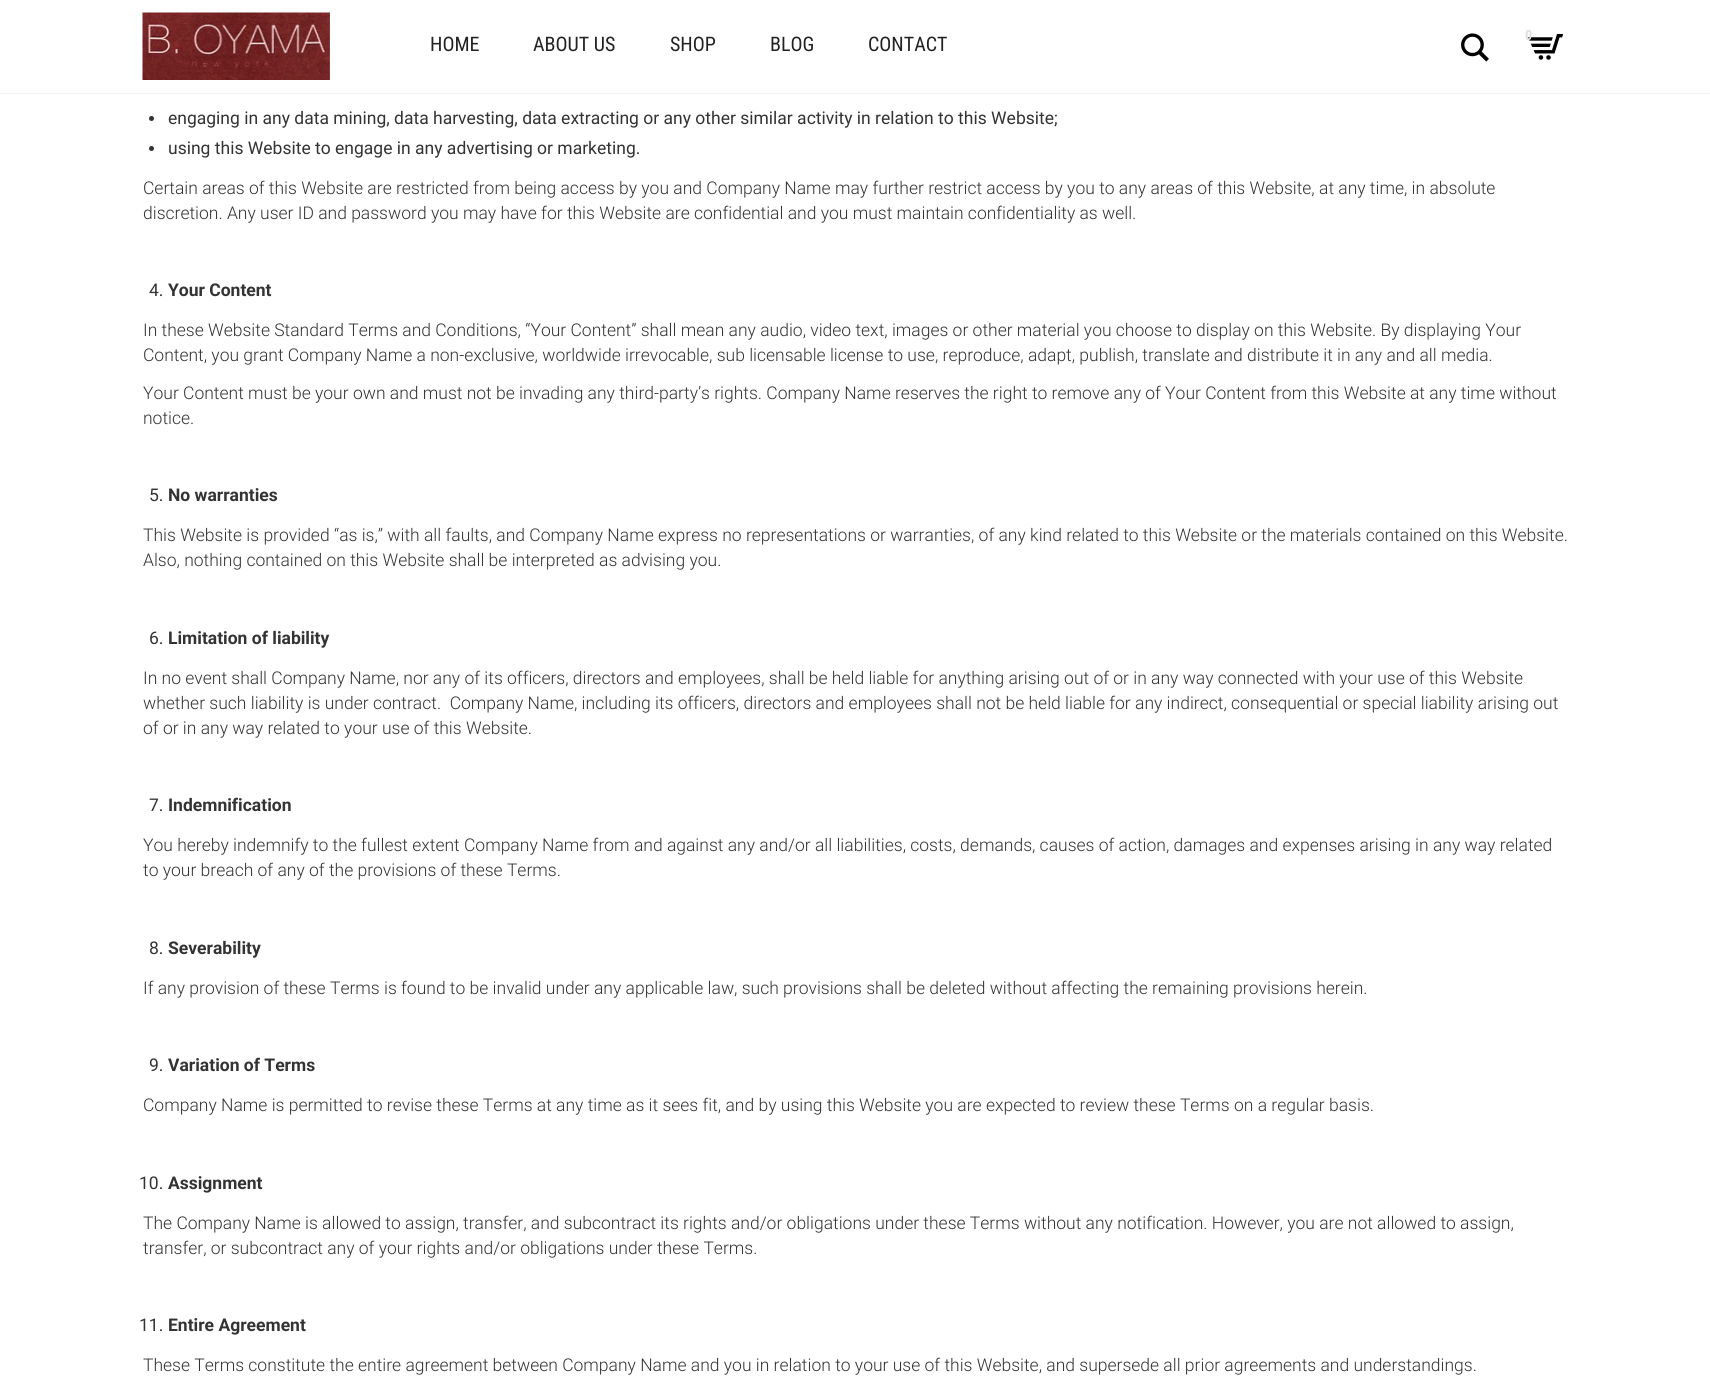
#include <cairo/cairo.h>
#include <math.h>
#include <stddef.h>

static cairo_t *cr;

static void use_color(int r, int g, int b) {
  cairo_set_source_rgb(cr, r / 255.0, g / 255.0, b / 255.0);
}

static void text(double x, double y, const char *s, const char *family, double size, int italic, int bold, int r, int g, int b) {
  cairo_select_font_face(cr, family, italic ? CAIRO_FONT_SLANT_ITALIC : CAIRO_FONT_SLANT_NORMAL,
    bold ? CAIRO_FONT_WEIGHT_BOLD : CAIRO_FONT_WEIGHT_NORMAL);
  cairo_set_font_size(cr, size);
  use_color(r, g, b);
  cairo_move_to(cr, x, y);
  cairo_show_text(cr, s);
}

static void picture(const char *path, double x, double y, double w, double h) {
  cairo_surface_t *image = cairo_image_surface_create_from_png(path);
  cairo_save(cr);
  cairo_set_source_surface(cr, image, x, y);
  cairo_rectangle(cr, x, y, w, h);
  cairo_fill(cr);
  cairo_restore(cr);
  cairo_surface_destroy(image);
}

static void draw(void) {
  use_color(255, 255, 255);
  cairo_paint(cr);
  cairo_set_source_rgba(cr, 0, 0, 0, 0.05);
  cairo_rectangle(cr, 0, 93, 1710, 1);
  cairo_fill(cr);
  picture("img_01.png", 142, 12, 188, 68);
  picture("img_02.png", 1461, 33, 28, 29);
  picture("img_03.png", 1528, 34, 36, 26);
  use_color(51, 51, 51);
  cairo_arc(cr, 151.5, 118.5, 2.5, 0, 2 * M_PI);
  cairo_fill(cr);
  cairo_arc(cr, 151.5, 148.5, 2.5, 0, 2 * M_PI);
  cairo_fill(cr);
  text(430, 51, "HOME", "Roboto Condensed", 20, 0, 0, 34, 34, 34);
  text(533, 51, "ABOUT US", "Roboto Condensed", 20, 0, 0, 34, 34, 34);
  text(670, 51, "SHOP", "Roboto Condensed", 20, 0, 0, 34, 34, 34);
  text(770, 51, "BLOG", "Roboto Condensed", 20, 0, 0, 34, 34, 34);
  text(868, 51, "CONTACT", "Roboto Condensed", 20, 0, 0, 34, 34, 34);
  text(1525, 40, "0", "Roboto Condensed", 14, 0, 1, 221, 221, 221);
  text(168, 124, "engaging in any data mining, data harvesting, data extracting or any other similar activity in relation to this Website;", "Roboto", 17.5, 0, 0, 51, 51, 51);
  text(168, 154, "using this Website to engage in any advertising or marketing.", "Roboto", 17.5, 0, 0, 51, 51, 51);
  text(143, 194, "Certain areas of this Website are restricted from being access by you and Company Name may further restrict access by you to any areas of this Website, at any time, in absolute", "Roboto Light", 17.5, 0, 0, 51, 51, 51);
  text(143, 219, "discretion. Any user ID and password you may have for this Website are confidential and you must maintain confidentiality as well.", "Roboto Light", 17.5, 0, 0, 51, 51, 51);
  text(149, 296, "4.", "Roboto", 17.5, 0, 0, 51, 51, 51);
  text(168, 296, "Your Content", "Roboto", 17.5, 0, 1, 51, 51, 51);
  text(143, 336, "In these Website Standard Terms and Conditions, “Your Content” shall mean any audio, video text, images or other material you choose to display on this Website. By displaying Your", "Roboto Light", 17.5, 0, 0, 51, 51, 51);
  text(143, 361, "Content, you grant Company Name a non-exclusive, worldwide irrevocable, sub licensable license to use, reproduce, adapt, publish, translate and distribute it in any and all media.", "Roboto Light", 17.5, 0, 0, 51, 51, 51);
  text(143, 399, "Your Content must be your own and must not be invading any third-party’s rights. Company Name reserves the right to remove any of Your Content from this Website at any time without", "Roboto Light", 17.5, 0, 0, 51, 51, 51);
  text(143, 424, "notice.", "Roboto Light", 17.5, 0, 0, 51, 51, 51);
  text(149, 501, "5.", "Roboto", 17.5, 0, 0, 51, 51, 51);
  text(168, 501, "No warranties", "Roboto", 17.5, 0, 1, 51, 51, 51);
  text(143, 541, "This Website is provided “as is,” with all faults, and Company Name express no representations or warranties, of any kind related to this Website or the materials contained on this Website.", "Roboto Light", 17.5, 0, 0, 51, 51, 51);
  text(143, 566, "Also, nothing contained on this Website shall be interpreted as advising you.", "Roboto Light", 17.5, 0, 0, 51, 51, 51);
  text(149, 644, "6.", "Roboto", 17.5, 0, 0, 51, 51, 51);
  text(168, 644, "Limitation of liability", "Roboto", 17.5, 0, 1, 51, 51, 51);
  text(143, 684, "In no event shall Company Name, nor any of its officers, directors and employees, shall be held liable for anything arising out of or in any way connected with your use of this Website", "Roboto Light", 17.5, 0, 0, 51, 51, 51);
  text(143, 709, "whether such liability is under contract.  Company Name, including its officers, directors and employees shall not be held liable for any indirect, consequential or special liability arising out", "Roboto Light", 17.5, 0, 0, 51, 51, 51);
  text(143, 734, "of or in any way related to your use of this Website.", "Roboto Light", 17.5, 0, 0, 51, 51, 51);
  text(149, 811, "7.", "Roboto", 17.5, 0, 0, 51, 51, 51);
  text(168, 811, "Indemnification", "Roboto", 17.5, 0, 1, 51, 51, 51);
  text(143, 851, "You hereby indemnify to the fullest extent Company Name from and against any and/or all liabilities, costs, demands, causes of action, damages and expenses arising in any way related", "Roboto Light", 17.5, 0, 0, 51, 51, 51);
  text(143, 876, "to your breach of any of the provisions of these Terms.", "Roboto Light", 17.5, 0, 0, 51, 51, 51);
  text(149, 954, "8.", "Roboto", 17.5, 0, 0, 51, 51, 51);
  text(168, 954, "Severability", "Roboto", 17.5, 0, 1, 51, 51, 51);
  text(143, 994, "If any provision of these Terms is found to be invalid under any applicable law, such provisions shall be deleted without affecting the remaining provisions herein.", "Roboto Light", 17.5, 0, 0, 51, 51, 51);
  text(149, 1071, "9.", "Roboto", 17.5, 0, 0, 51, 51, 51);
  text(168, 1071, "Variation of Terms", "Roboto", 17.5, 0, 1, 51, 51, 51);
  text(143, 1111, "Company Name is permitted to revise these Terms at any time as it sees fit, and by using this Website you are expected to review these Terms on a regular basis.", "Roboto Light", 17.5, 0, 0, 51, 51, 51);
  text(139, 1189, "10.", "Roboto", 17.5, 0, 0, 51, 51, 51);
  text(168, 1189, "Assignment", "Roboto", 17.5, 0, 1, 51, 51, 51);
  text(143, 1229, "The Company Name is allowed to assign, transfer, and subcontract its rights and/or obligations under these Terms without any notification. However, you are not allowed to assign,", "Roboto Light", 17.5, 0, 0, 51, 51, 51);
  text(143, 1254, "transfer, or subcontract any of your rights and/or obligations under these Terms.", "Roboto Light", 17.5, 0, 0, 51, 51, 51);
  text(139, 1331, "11.", "Roboto", 17.5, 0, 0, 51, 51, 51);
  text(168, 1331, "Entire Agreement", "Roboto", 17.5, 0, 1, 51, 51, 51);
  text(143, 1371, "These Terms constitute the entire agreement between Company Name and you in relation to your use of this Website, and supersede all prior agreements and understandings.", "Roboto Light", 17.5, 0, 0, 51, 51, 51);
}

int main(void) {
  cairo_surface_t *surface = cairo_image_surface_create(CAIRO_FORMAT_RGB24, 1710, 1381);
  cr = cairo_create(surface);
  cairo_font_options_t *options = cairo_font_options_create();
  cairo_font_options_set_hint_metrics(options, CAIRO_HINT_METRICS_OFF);
  cairo_font_options_set_hint_style(options, CAIRO_HINT_STYLE_NONE);
  cairo_set_font_options(cr, options);
  cairo_set_miter_limit(cr, 4);
  draw();
  cairo_surface_write_to_png(surface, "out.png");
  cairo_font_options_destroy(options);
  cairo_destroy(cr);
  cairo_surface_destroy(surface);
  return 0;
}
